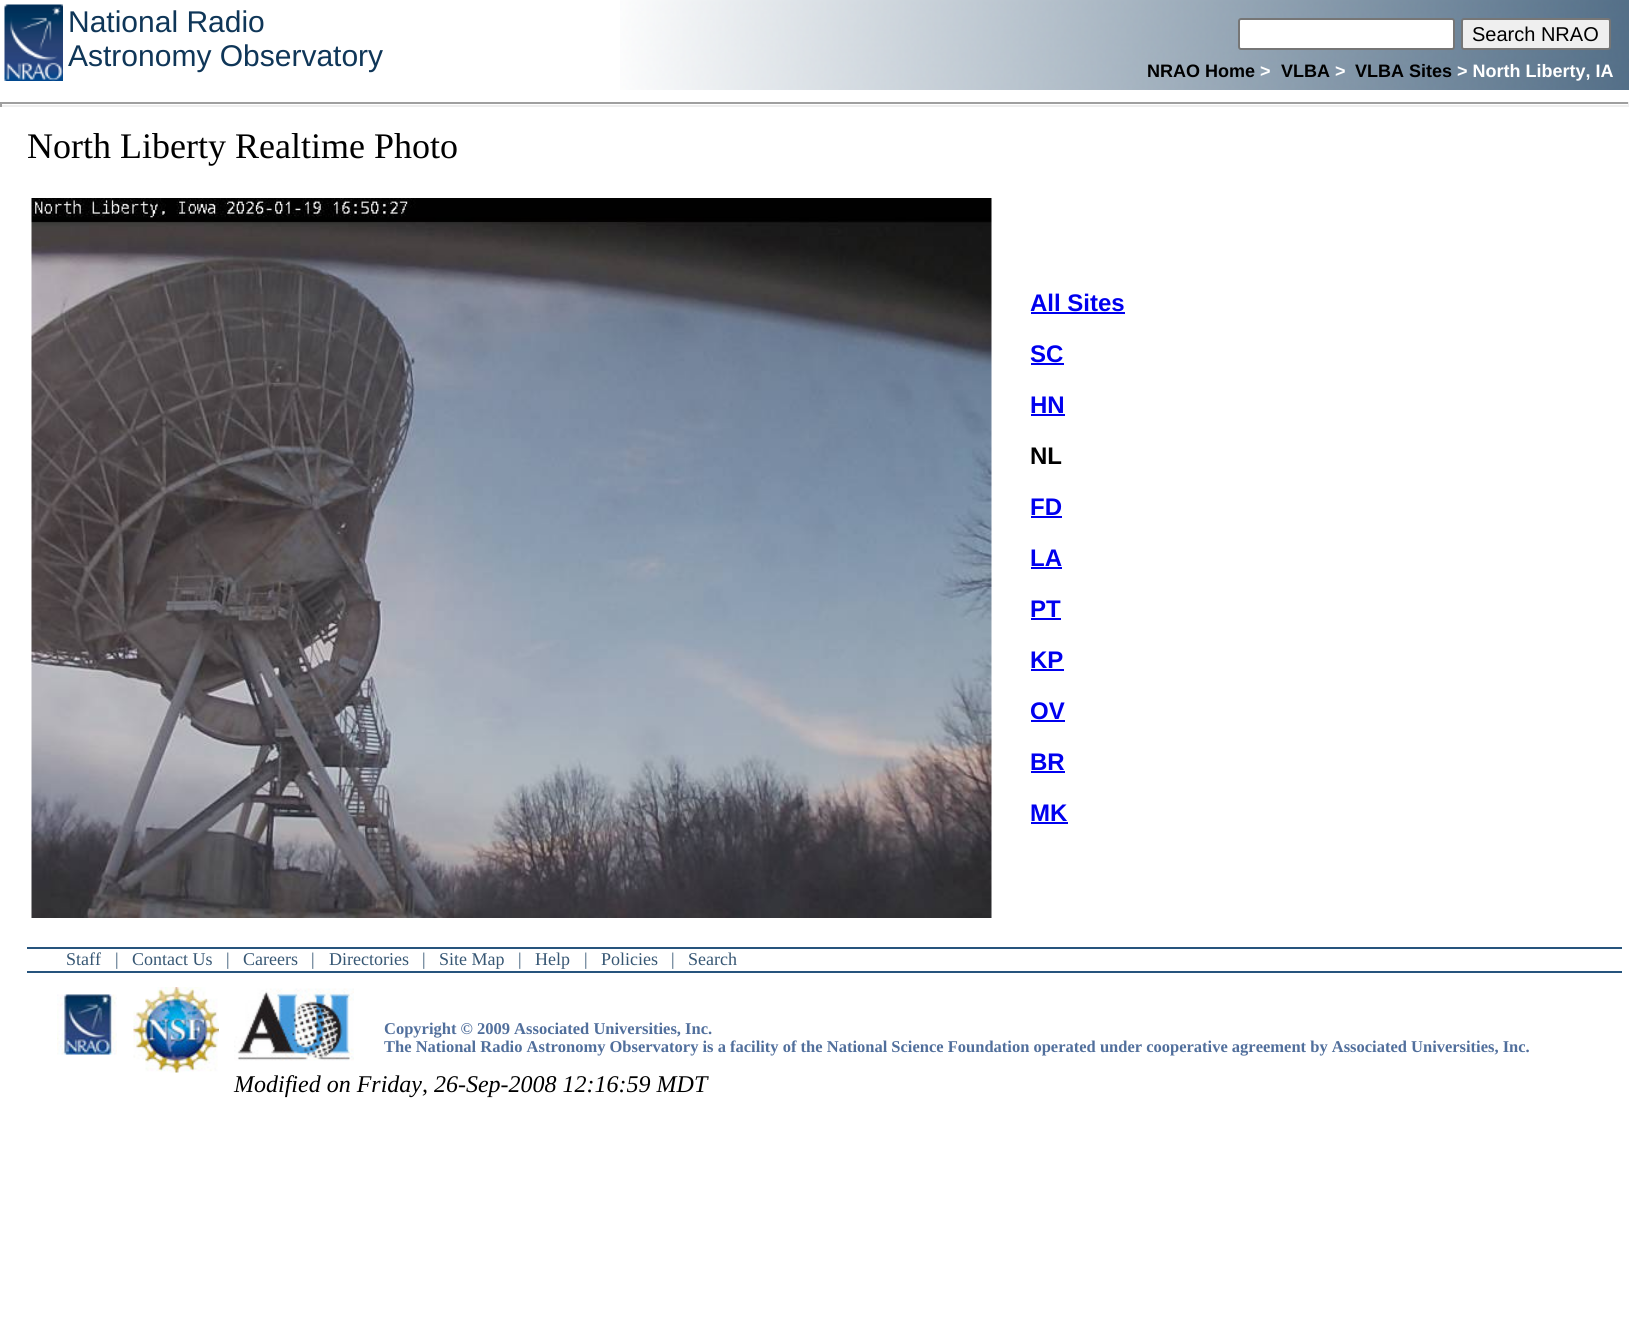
#include <cairo/cairo.h>
#include <math.h>
#include <stddef.h>

static cairo_t *cr;

static void use_color(int r, int g, int b) {
  cairo_set_source_rgb(cr, r / 255.0, g / 255.0, b / 255.0);
}

static void text(double x, double y, const char *s, const char *family, double size, int italic, int bold, int r, int g, int b) {
  cairo_select_font_face(cr, family, italic ? CAIRO_FONT_SLANT_ITALIC : CAIRO_FONT_SLANT_NORMAL,
    bold ? CAIRO_FONT_WEIGHT_BOLD : CAIRO_FONT_WEIGHT_NORMAL);
  cairo_set_font_size(cr, size);
  use_color(r, g, b);
  cairo_move_to(cr, x, y);
  cairo_show_text(cr, s);
}

static void box(double x, double y, double w, double h, int r, int g, int b) {
  use_color(r, g, b);
  cairo_rectangle(cr, x, y, w, h);
  cairo_fill(cr);
}

static void round_rect(double x, double y, double w, double h, double r) {
  cairo_new_sub_path(cr);
  cairo_arc(cr, x + w - r, y + h - r, r, 0, M_PI / 2);
  cairo_arc(cr, x + r, y + h - r, r, M_PI / 2, M_PI);
  cairo_arc(cr, x + r, y + r, r, M_PI, 1.5 * M_PI);
  cairo_arc(cr, x + w - r, y + r, r, 1.5 * M_PI, 2 * M_PI);
  cairo_close_path(cr);
}

static void picture(const char *path, double x, double y, double w, double h) {
  cairo_surface_t *image = cairo_image_surface_create_from_png(path);
  cairo_save(cr);
  cairo_set_source_surface(cr, image, x, y);
  cairo_rectangle(cr, x, y, w, h);
  cairo_fill(cr);
  cairo_restore(cr);
  cairo_surface_destroy(image);
}

static void draw(void) {
  use_color(255, 255, 255);
  cairo_paint(cr);
  picture("img_01.png", 620, 0, 1009, 90);
  picture("img_02.png", 4, 4, 59, 77);
  use_color(255, 255, 255);
  round_rect(1239, 19, 215, 30, 2);
  cairo_fill_preserve(cr);
  use_color(118, 118, 118);
  cairo_stroke(cr);
  use_color(239, 239, 239);
  round_rect(1462, 19, 148, 30, 2);
  cairo_fill_preserve(cr);
  use_color(118, 118, 118);
  cairo_stroke(cr);
  box(0, 102, 1629, 2, 159, 159, 159);
  box(1628, 102, 1, 5, 238, 238, 238);
  box(0, 105, 1629, 2, 238, 238, 238);
  box(0, 102, 2, 5, 159, 159, 159);
  picture("img_03.png", 31, 198, 961, 720);
  box(1031, 312, 94, 2, 0, 0, 238);
  box(1031, 363, 33, 2, 0, 0, 238);
  box(1031, 414, 34, 2, 0, 0, 238);
  box(1031, 516, 31, 2, 0, 0, 238);
  box(1031, 567, 31, 2, 0, 0, 238);
  box(1031, 618, 30, 2, 0, 0, 238);
  box(1031, 669, 33, 2, 0, 0, 238);
  box(1031, 720, 34, 2, 0, 0, 238);
  box(1031, 771, 34, 2, 0, 0, 238);
  box(1031, 822, 37, 2, 0, 0, 238);
  box(27, 947, 1595, 2, 38, 84, 125);
  box(27, 971, 1595, 2, 38, 84, 125);
  picture("img_04.png", 57, 994, 60, 61);
  picture("img_05.png", 133, 987, 86, 86);
  picture("img_06.png", 234, 988, 120, 73);
  text(68, 32, "National Radio", "Liberation Sans", 30, 0, 0, 15, 54, 88);
  text(68, 66, "Astronomy Observatory", "Liberation Sans", 30, 0, 0, 15, 54, 88);
  text(1472, 41, "Search NRAO", "Liberation Sans", 20, 0, 0, 0, 0, 0);
  text(1147, 77, "NRAO Home", "Liberation Sans", 18, 0, 1, 0, 0, 0);
  text(1260, 77, ">", "Liberation Sans", 18, 0, 1, 255, 255, 255);
  text(1281, 77, "VLBA", "Liberation Sans", 18, 0, 1, 0, 0, 0);
  text(1335, 77, ">", "Liberation Sans", 18, 0, 1, 255, 255, 255);
  text(1355, 77, "VLBA Sites", "Liberation Sans", 18, 0, 1, 0, 0, 0);
  text(1457, 77, "> North Liberty, IA", "Liberation Sans", 18, 0, 1, 255, 255, 255);
  text(27, 158, "North Liberty Realtime Photo", "Liberation Serif", 36, 0, 0, 0, 0, 0);
  text(1030, 311, "All Sites", "Liberation Sans", 24, 0, 1, 0, 0, 238);
  text(1030, 362, "SC", "Liberation Sans", 24, 0, 1, 0, 0, 238);
  text(1030, 413, "HN", "Liberation Sans", 24, 0, 1, 0, 0, 238);
  text(1030, 464, "NL", "Liberation Sans", 24, 0, 1, 0, 0, 0);
  text(1030, 515, "FD", "Liberation Sans", 24, 0, 1, 0, 0, 238);
  text(1030, 566, "LA", "Liberation Sans", 24, 0, 1, 0, 0, 238);
  text(1030, 617, "PT", "Liberation Sans", 24, 0, 1, 0, 0, 238);
  text(1030, 668, "KP", "Liberation Sans", 24, 0, 1, 0, 0, 238);
  text(1030, 719, "OV", "Liberation Sans", 24, 0, 1, 0, 0, 238);
  text(1030, 770, "BR", "Liberation Sans", 24, 0, 1, 0, 0, 238);
  text(1030, 821, "MK", "Liberation Sans", 24, 0, 1, 0, 0, 238);
  text(66, 965, "Staff", "Liberation Serif", 18, 0, 0, 55, 87, 116);
  text(115, 965, "|", "Liberation Serif", 18, 0, 0, 55, 87, 116);
  text(132, 965, "Contact Us", "Liberation Serif", 18, 0, 0, 55, 87, 116);
  text(226, 965, "|", "Liberation Serif", 18, 0, 0, 55, 87, 116);
  text(243, 965, "Careers", "Liberation Serif", 18, 0, 0, 55, 87, 116);
  text(311, 965, "|", "Liberation Serif", 18, 0, 0, 55, 87, 116);
  text(329, 965, "Directories", "Liberation Serif", 18, 0, 0, 55, 87, 116);
  text(422, 965, "|", "Liberation Serif", 18, 0, 0, 55, 87, 116);
  text(439, 965, "Site Map", "Liberation Serif", 18, 0, 0, 55, 87, 116);
  text(518, 965, "|", "Liberation Serif", 18, 0, 0, 55, 87, 116);
  text(535, 965, "Help", "Liberation Serif", 18, 0, 0, 55, 87, 116);
  text(584, 965, "|", "Liberation Serif", 18, 0, 0, 55, 87, 116);
  text(601, 965, "Policies", "Liberation Serif", 18, 0, 0, 55, 87, 116);
  text(671, 965, "|", "Liberation Serif", 18, 0, 0, 55, 87, 116);
  text(688, 965, "Search", "Liberation Serif", 18, 0, 0, 55, 87, 116);
  text(384, 1034, "Copyright © 2009 Associated Universities, Inc.", "Liberation Serif", 16.5, 0, 1, 81, 111, 156);
  text(384, 1052, "The National Radio Astronomy Observatory is a facility of the National Science Foundation operated under cooperative agreement by Associated Universities, Inc.", "Liberation Serif", 16.5, 0, 1, 81, 111, 156);
  text(234, 1092, "Modified on Friday, 26-Sep-2008 12:16:59 MDT", "Liberation Serif", 24, 1, 0, 0, 0, 0);
}

int main(void) {
  cairo_surface_t *surface = cairo_image_surface_create(CAIRO_FORMAT_RGB24, 1629, 1317);
  cr = cairo_create(surface);
  cairo_font_options_t *options = cairo_font_options_create();
  cairo_font_options_set_hint_metrics(options, CAIRO_HINT_METRICS_OFF);
  cairo_font_options_set_hint_style(options, CAIRO_HINT_STYLE_NONE);
  cairo_set_font_options(cr, options);
  cairo_set_miter_limit(cr, 4);
  draw();
  cairo_surface_write_to_png(surface, "out.png");
  cairo_font_options_destroy(options);
  cairo_destroy(cr);
  cairo_surface_destroy(surface);
  return 0;
}
